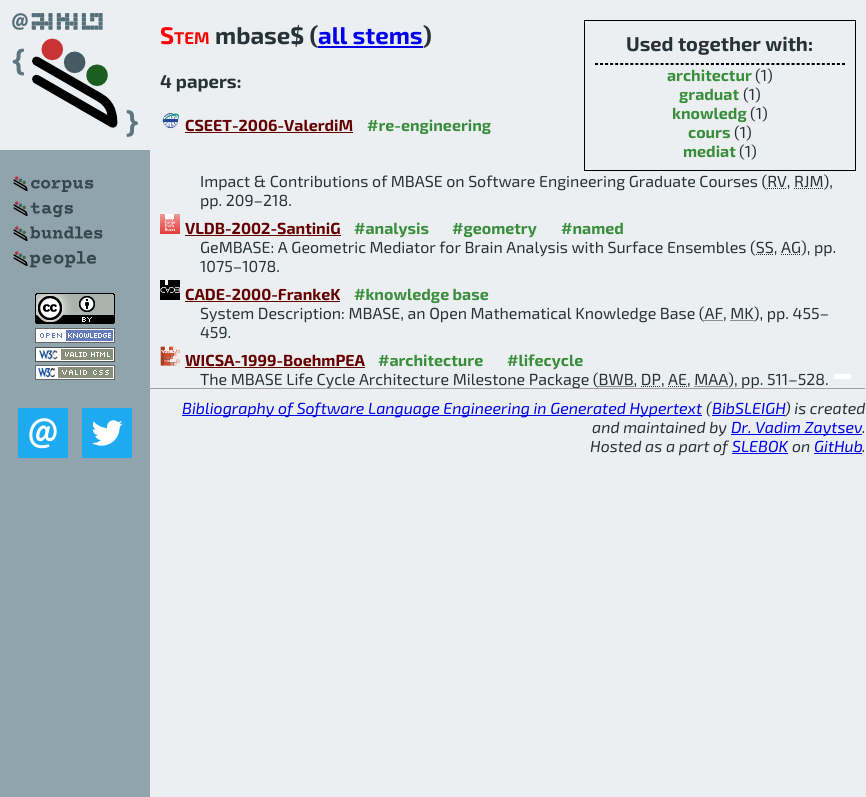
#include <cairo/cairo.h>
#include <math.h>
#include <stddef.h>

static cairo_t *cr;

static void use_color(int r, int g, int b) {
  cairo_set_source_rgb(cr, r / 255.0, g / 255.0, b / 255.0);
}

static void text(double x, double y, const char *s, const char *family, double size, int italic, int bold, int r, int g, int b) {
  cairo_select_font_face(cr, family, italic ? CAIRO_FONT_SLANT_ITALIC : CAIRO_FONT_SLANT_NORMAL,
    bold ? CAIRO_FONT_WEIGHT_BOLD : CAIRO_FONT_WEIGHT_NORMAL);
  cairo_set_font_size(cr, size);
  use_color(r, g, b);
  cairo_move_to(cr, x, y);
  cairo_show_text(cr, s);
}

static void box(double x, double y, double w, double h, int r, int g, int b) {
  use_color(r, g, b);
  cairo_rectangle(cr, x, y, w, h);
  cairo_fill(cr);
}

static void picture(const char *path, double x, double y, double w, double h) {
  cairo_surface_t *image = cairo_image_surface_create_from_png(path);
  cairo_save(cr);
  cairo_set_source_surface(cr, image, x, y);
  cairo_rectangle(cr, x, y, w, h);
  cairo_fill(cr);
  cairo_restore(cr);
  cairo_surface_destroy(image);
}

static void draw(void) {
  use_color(236, 239, 241);
  cairo_paint(cr);
  box(0, 150, 150, 647, 144, 164, 174);
  picture("img_01.png", 0, 0, 150, 150);
  picture("img_02.png", 13, 176, 81, 16);
  picture("img_03.png", 13, 201, 60, 17);
  picture("img_04.png", 13, 226, 90, 16);
  picture("img_05.png", 13, 251, 84, 17);
  picture("img_06.png", 35, 293, 80, 31);
  picture("img_07.png", 35, 328, 80, 15);
  picture("img_08.png", 35, 347, 80, 15);
  picture("img_09.png", 35, 365, 80, 15);
  picture("img_10.png", 18, 408, 50, 50);
  picture("img_11.png", 82, 408, 50, 50);
  box(318, 46, 105, 2, 0, 0, 238);
  cairo_rectangle(cr, 584.5, 20.5, 271, 150);
  use_color(0, 0, 0);
  cairo_set_line_width(cr, 1);
  cairo_stroke(cr);
  cairo_new_path(cr);
  cairo_move_to(cr, 595, 63.5);
  cairo_line_to(cr, 845, 63.5);
  cairo_set_dash(cr, (double[]){3, 2.04}, 2, 0);
  cairo_stroke(cr);
  box(844, 63, 1, 2, 0, 0, 0);
  cairo_new_path(cr);
  cairo_move_to(cr, 595, 64.5);
  cairo_line_to(cr, 845, 64.5);
  cairo_stroke(cr);
  picture("img_12.png", 161, 113, 19, 16);
  box(185, 132, 168, 1, 102, 0, 0);
  cairo_new_path(cr);
  cairo_move_to(cr, 767, 188.5);
  cairo_line_to(cr, 787, 188.5);
  cairo_move_to(cr, 794, 188.5);
  cairo_line_to(cr, 823.5, 188.5);
  use_color(38, 50, 56);
  cairo_set_dash(cr, (double[]){1, 1}, 2, 0);
  cairo_stroke(cr);
  picture("img_13.png", 160, 214, 20, 20);
  box(165, 214, 9, 5, 255, 255, 255);
  box(185, 235, 156, 1, 102, 0, 0);
  cairo_new_path(cr);
  cairo_move_to(cr, 756, 254.5);
  cairo_line_to(cr, 773.5, 254.5);
  cairo_move_to(cr, 781, 254.5);
  cairo_line_to(cr, 801, 254.5);
  use_color(38, 50, 56);
  cairo_stroke(cr);
  picture("img_14.png", 160, 280, 20, 20);
  box(165, 280, 3, 5, 255, 255, 255);
  box(185, 301, 155, 1, 102, 0, 0);
  cairo_new_path(cr);
  cairo_move_to(cr, 704.5, 320.5);
  cairo_line_to(cr, 723, 320.5);
  cairo_move_to(cr, 730.5, 320.5);
  cairo_line_to(cr, 754, 320.5);
  use_color(38, 50, 56);
  cairo_stroke(cr);
  picture("img_15.png", 160, 346, 20, 20);
  box(165, 346, 4, 5, 255, 255, 255);
  box(185, 367, 180, 1, 102, 0, 0);
  cairo_new_path(cr);
  cairo_move_to(cr, 598.5, 386.5);
  cairo_line_to(cr, 633.5, 386.5);
  cairo_move_to(cr, 641, 386.5);
  cairo_line_to(cr, 661, 386.5);
  use_color(38, 50, 56);
  cairo_stroke(cr);
  cairo_new_path(cr);
  cairo_move_to(cr, 668, 386.5);
  cairo_line_to(cr, 687, 386.5);
  cairo_move_to(cr, 694.5, 386.5);
  cairo_line_to(cr, 728, 386.5);
  cairo_stroke(cr);
  box(834, 374, 17, 5, 255, 255, 255);
  box(182, 415, 520, 1, 0, 0, 238);
  box(731, 434, 131, 1, 0, 0, 238);
  box(732, 453, 56, 1, 0, 0, 238);
  box(814, 453, 48, 1, 0, 0, 238);
  text(160, 44, "S", "Exo 2", 24, 0, 1, 255, 0, 0);
  text(174, 44, "TEM", "Exo 2", 17, 0, 1, 255, 0, 0);
  text(215, 44, "mbase$ (", "Exo 2", 24, 0, 1, 38, 50, 56);
  text(318, 44, "all stems", "Exo 2", 24, 0, 1, 0, 0, 238);
  text(423, 44, ")", "Exo 2", 24, 0, 1, 38, 50, 56);
  text(626, 51, "Used together with:", "Exo 2", 20, 0, 1, 38, 50, 56);
  text(667, 81, "architectur", "Exo 2", 16, 0, 1, 56, 142, 60);
  text(755, 81, "(1)", "Exo 2", 16, 0, 0, 38, 50, 56);
  text(679, 100, "graduat", "Exo 2", 16, 0, 1, 56, 142, 60);
  text(743, 100, "(1)", "Exo 2", 16, 0, 0, 38, 50, 56);
  text(672, 119, "knowledg", "Exo 2", 16, 0, 1, 56, 142, 60);
  text(750, 119, "(1)", "Exo 2", 16, 0, 0, 38, 50, 56);
  text(688, 138, "cours", "Exo 2", 16, 0, 1, 56, 142, 60);
  text(734, 138, "(1)", "Exo 2", 16, 0, 0, 38, 50, 56);
  text(683, 157, "mediat", "Exo 2", 16, 0, 1, 56, 142, 60);
  text(739, 157, "(1)", "Exo 2", 16, 0, 0, 38, 50, 56);
  text(160, 88, "4 papers:", "Exo 2", 18.5, 0, 1, 38, 50, 56);
  text(185, 131, "CSEET-2006-ValerdiM", "Exo 2", 16, 0, 1, 102, 0, 0);
  text(367, 131, "#re-engineering", "Exo 2", 16, 0, 1, 56, 142, 60);
  text(200, 187, "Impact & Contributions of MBASE on Software Engineering Graduate Courses (RV, RJM),", "Exo 2", 16, 0, 0, 38, 50, 56);
  text(200, 206, "pp. 209–218.", "Exo 2", 16, 0, 0, 38, 50, 56);
  text(185, 234, "VLDB-2002-SantiniG", "Exo 2", 16, 0, 1, 102, 0, 0);
  text(354, 234, "#analysis", "Exo 2", 16, 0, 1, 56, 142, 60);
  text(452, 234, "#geometry", "Exo 2", 16, 0, 1, 56, 142, 60);
  text(561, 234, "#named", "Exo 2", 16, 0, 1, 56, 142, 60);
  text(200, 253, "GeMBASE: A Geometric Mediator for Brain Analysis with Surface Ensembles (SS, AG), pp.", "Exo 2", 16, 0, 0, 38, 50, 56);
  text(200, 272, "1075–1078.", "Exo 2", 16, 0, 0, 38, 50, 56);
  text(185, 300, "CADE-2000-FrankeK", "Exo 2", 16, 0, 1, 102, 0, 0);
  text(354, 300, "#knowledge base", "Exo 2", 16, 0, 1, 56, 142, 60);
  text(200, 319, "System Description: MBASE, an Open Mathematical Knowledge Base (AF, MK), pp. 455–", "Exo 2", 16, 0, 0, 38, 50, 56);
  text(200, 338, "459.", "Exo 2", 16, 0, 0, 38, 50, 56);
  text(185, 366, "WICSA-1999-BoehmPEA", "Exo 2", 16, 0, 1, 102, 0, 0);
  text(378, 366, "#architecture", "Exo 2", 16, 0, 1, 56, 142, 60);
  text(507, 366, "#lifecycle", "Exo 2", 16, 0, 1, 56, 142, 60);
  text(200, 385, "The MBASE Life Cycle Architecture Milestone Package (BWB, DP, AE, MAA), pp. 511–528.", "Exo 2", 16, 0, 0, 38, 50, 56);
  box(150, 388, 716, 1, 159, 159, 159);
  box(865, 388, 1, 2, 238, 238, 238);
  box(150, 389, 716, 1, 238, 238, 238);
  text(182, 414, "Bibliography of Software Language Engineering in Generated Hypertext", "Exo 2", 16, 1, 0, 0, 0, 238);
  text(706, 414, "(", "Exo 2", 16, 1, 0, 38, 50, 56);
  box(712, 415, 73, 1, 0, 0, 238);
  text(712, 414, "BibSLEIGH", "Exo 2", 16, 1, 0, 0, 0, 238);
  text(785, 414, ") is created", "Exo 2", 16, 1, 0, 38, 50, 56);
  text(592, 433, "and maintained by", "Exo 2", 16, 1, 0, 38, 50, 56);
  text(731, 433, "Dr. Vadim Zaytsev", "Exo 2", 16, 1, 0, 0, 0, 238);
  text(862, 433, ".", "Exo 2", 16, 1, 0, 38, 50, 56);
  text(590, 452, "Hosted as a part of", "Exo 2", 16, 1, 0, 38, 50, 56);
  text(732, 452, "SLEBOK", "Exo 2", 16, 1, 0, 0, 0, 238);
  text(792, 452, "on", "Exo 2", 16, 1, 0, 38, 50, 56);
  text(814, 452, "GitHub", "Exo 2", 16, 1, 0, 0, 0, 238);
  text(862, 452, ".", "Exo 2", 16, 1, 0, 38, 50, 56);
}

int main(void) {
  cairo_surface_t *surface = cairo_image_surface_create(CAIRO_FORMAT_RGB24, 866, 797);
  cr = cairo_create(surface);
  cairo_font_options_t *options = cairo_font_options_create();
  cairo_font_options_set_hint_metrics(options, CAIRO_HINT_METRICS_OFF);
  cairo_font_options_set_hint_style(options, CAIRO_HINT_STYLE_NONE);
  cairo_set_font_options(cr, options);
  cairo_set_miter_limit(cr, 4);
  draw();
  cairo_surface_write_to_png(surface, "out.png");
  cairo_font_options_destroy(options);
  cairo_destroy(cr);
  cairo_surface_destroy(surface);
  return 0;
}
